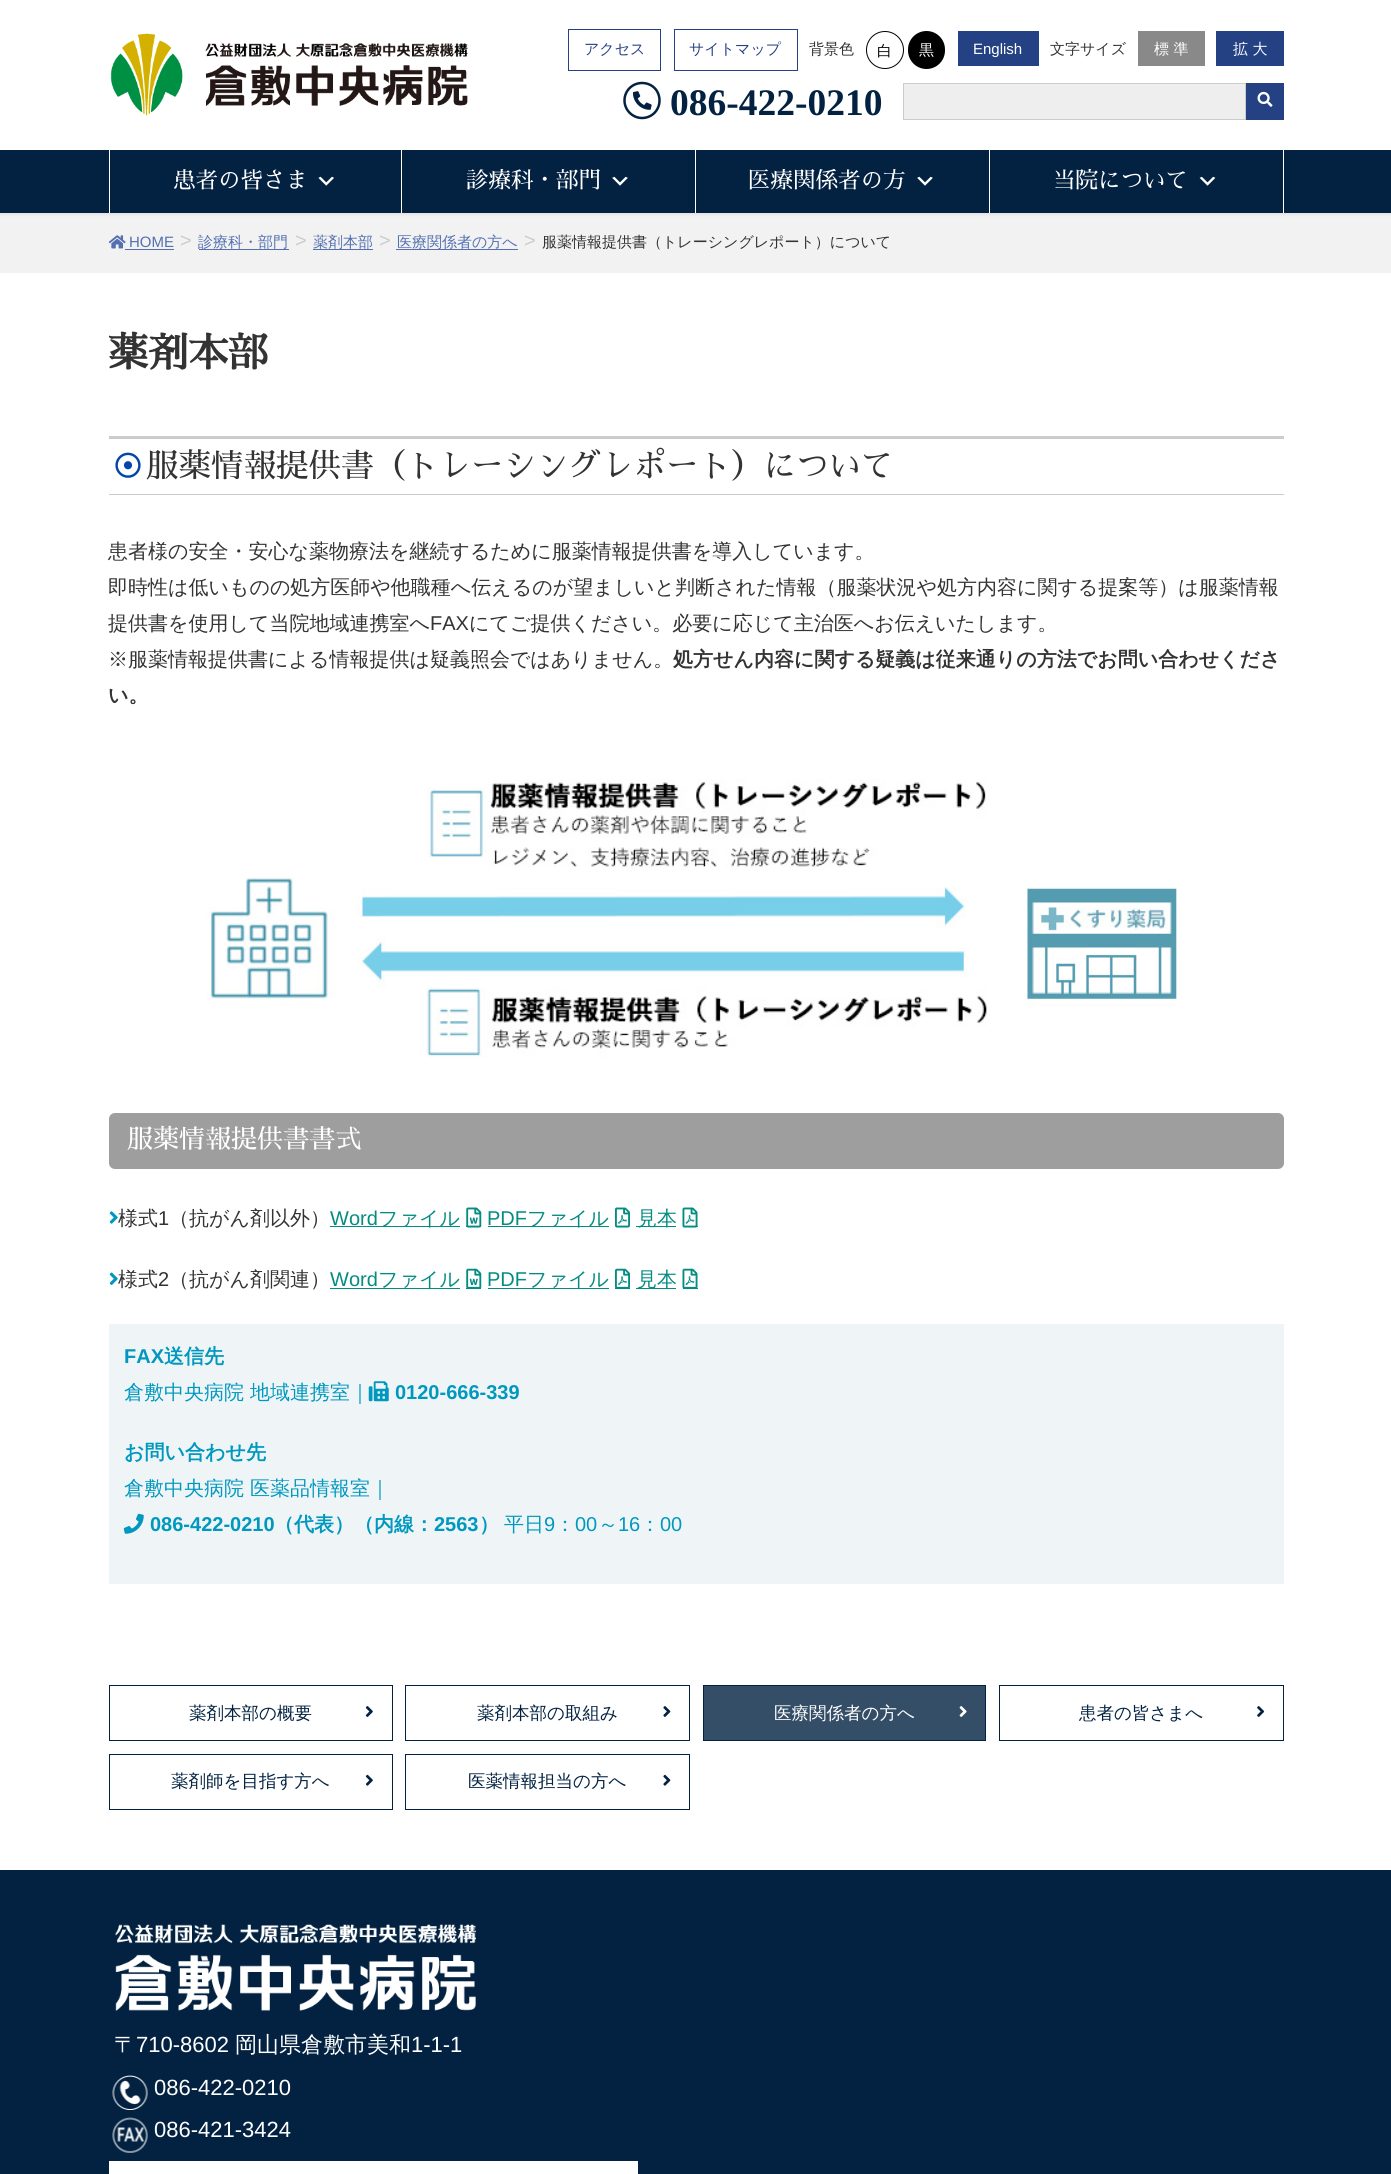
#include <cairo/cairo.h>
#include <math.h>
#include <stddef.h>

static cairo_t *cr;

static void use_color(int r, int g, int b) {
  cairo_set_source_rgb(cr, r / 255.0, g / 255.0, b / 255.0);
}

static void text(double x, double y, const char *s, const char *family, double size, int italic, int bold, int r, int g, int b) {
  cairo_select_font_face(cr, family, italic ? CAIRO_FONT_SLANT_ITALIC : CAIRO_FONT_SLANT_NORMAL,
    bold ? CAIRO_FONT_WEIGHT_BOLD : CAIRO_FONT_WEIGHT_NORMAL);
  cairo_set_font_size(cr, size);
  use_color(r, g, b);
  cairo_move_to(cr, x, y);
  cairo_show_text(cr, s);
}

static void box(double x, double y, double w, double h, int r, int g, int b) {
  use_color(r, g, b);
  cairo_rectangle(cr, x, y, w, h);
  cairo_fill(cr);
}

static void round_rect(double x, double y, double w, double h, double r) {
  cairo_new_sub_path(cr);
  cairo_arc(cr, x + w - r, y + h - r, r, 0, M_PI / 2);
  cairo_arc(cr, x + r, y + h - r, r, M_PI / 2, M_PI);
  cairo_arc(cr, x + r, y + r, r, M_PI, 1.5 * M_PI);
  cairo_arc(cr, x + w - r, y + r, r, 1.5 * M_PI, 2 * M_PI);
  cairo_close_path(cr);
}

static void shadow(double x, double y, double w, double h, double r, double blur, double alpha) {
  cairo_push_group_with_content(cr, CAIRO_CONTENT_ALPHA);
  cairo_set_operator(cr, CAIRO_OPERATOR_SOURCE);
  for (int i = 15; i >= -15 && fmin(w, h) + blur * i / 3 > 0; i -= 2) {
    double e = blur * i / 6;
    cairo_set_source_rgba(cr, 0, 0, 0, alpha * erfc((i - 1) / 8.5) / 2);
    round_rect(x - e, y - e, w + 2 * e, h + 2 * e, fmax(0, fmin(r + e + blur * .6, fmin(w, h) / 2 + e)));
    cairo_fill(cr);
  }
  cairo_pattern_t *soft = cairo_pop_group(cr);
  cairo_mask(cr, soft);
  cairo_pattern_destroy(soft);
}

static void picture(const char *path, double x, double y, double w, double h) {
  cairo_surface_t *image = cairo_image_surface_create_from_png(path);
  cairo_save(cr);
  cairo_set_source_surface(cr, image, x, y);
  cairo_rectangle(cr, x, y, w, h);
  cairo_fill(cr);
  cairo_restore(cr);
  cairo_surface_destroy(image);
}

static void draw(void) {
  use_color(255, 255, 255);
  cairo_paint(cr);
  box(0, 213, 1391, 60, 242, 242, 242);
  use_color(0, 0, 0);
  shadow(0, 1, 1391, 213, 0, 2, 0.1);
  box(0, 0, 1391, 150, 255, 255, 255);
  picture("img_01.png", 110, 33, 358, 83);
  cairo_rectangle(cr, 568.5, 29.5, 92, 41);
  use_color(36, 65, 131);
  cairo_set_line_width(cr, 1);
  cairo_stroke(cr);
  cairo_rectangle(cr, 674.5, 29.5, 123, 41);
  cairo_stroke(cr);
  cairo_arc(cr, 885, 50, 18.5, 0, 2 * M_PI);
  use_color(0, 0, 0);
  cairo_stroke(cr);
  round_rect(908, 31, 37, 38, 18.5);
  cairo_fill(cr);
  box(958, 31, 81, 35, 36, 65, 131);
  box(1138, 31, 67, 35, 137, 137, 137);
  box(1216, 31, 68, 35, 36, 65, 131);
  cairo_new_path(cr);
  cairo_move_to(cr, 642, 83);
  cairo_curve_to(cr, 632.5, 83, 624.5, 90.5, 624.5, 100.5);
  cairo_curve_to(cr, 624.5, 110, 632.5, 118, 642, 118);
  cairo_curve_to(cr, 652, 118, 659.5, 110, 659.5, 100.5);
  cairo_curve_to(cr, 659.5, 90.5, 652, 83, 642, 83);
  cairo_close_path(cr);
  use_color(3, 34, 65);
  cairo_set_line_width(cr, 2.5);
  cairo_stroke(cr);
  picture("img_02.png", 632, 91, 20, 19);
  use_color(238, 238, 238);
  cairo_rectangle(cr, 903.5, 83.5, 342, 36);
  cairo_fill_preserve(cr);
  use_color(204, 204, 204);
  cairo_set_line_width(cr, 1);
  cairo_stroke(cr);
  box(1246, 83, 38, 37, 36, 65, 131);
  picture("img_03.png", 1257, 91, 16, 16);
  box(0, 150, 1391, 63, 3, 34, 65);
  box(401, 150, 1, 63, 255, 255, 255);
  box(109, 150, 1, 63, 255, 255, 255);
  picture("img_04.png", 318, 176, 16, 10);
  box(695, 150, 1, 63, 255, 255, 255);
  picture("img_05.png", 612, 176, 16, 10);
  box(989, 150, 1, 63, 255, 255, 255);
  picture("img_05.png", 917, 176, 16, 10);
  box(1283, 150, 1, 63, 255, 255, 255);
  picture("img_06.png", 1199, 176, 17, 10);
  picture("img_07.png", 108, 235, 18, 14);
  box(125, 249, 49, 1, 83, 112, 177);
  box(199, 249, 90, 1, 83, 112, 177);
  box(313, 249, 60, 1, 83, 112, 177);
  box(396, 249, 122, 1, 83, 112, 177);
  box(109, 436, 1175, 3, 204, 204, 204);
  box(109, 494, 1175, 1, 204, 204, 204);
  picture("img_08.png", 115, 452, 26, 26);
  picture("img_09.png", 206, 779, 971, 279);
  use_color(158, 158, 158);
  round_rect(109, 1113, 1175, 56, 6);
  cairo_fill(cr);
  picture("img_10.png", 109, 1211, 9, 13);
  box(330, 1226, 130, 1, 4, 140, 130);
  box(466, 1226, 15, 1, 4, 140, 130);
  picture("img_11.png", 466, 1207, 16, 21);
  box(488, 1226, 121, 1, 4, 140, 130);
  picture("img_12.png", 615, 1207, 15, 21);
  box(636, 1226, 40, 1, 4, 140, 130);
  box(697, 1226, 1, 1, 4, 140, 130);
  picture("img_13.png", 682, 1207, 16, 21);
  picture("img_14.png", 109, 1272, 9, 13);
  box(330, 1288, 130, 1, 4, 140, 130);
  box(466, 1288, 15, 1, 4, 140, 130);
  picture("img_15.png", 466, 1268, 16, 20);
  box(488, 1288, 121, 1, 4, 140, 130);
  box(615, 1288, 15, 1, 4, 140, 130);
  picture("img_16.png", 615, 1268, 15, 20);
  box(636, 1288, 40, 1, 4, 140, 130);
  box(683, 1288, 15, 1, 4, 140, 130);
  picture("img_17.png", 682, 1268, 16, 20);
  box(109, 1324, 1175, 260, 239, 245, 247);
  picture("img_18.png", 368, 1381, 21, 21);
  picture("img_19.png", 123, 1513, 21, 21);
  cairo_rectangle(cr, 109.5, 1685.5, 283, 55);
  use_color(3, 34, 65);
  cairo_stroke(cr);
  picture("img_20.png", 365, 1706, 8, 11);
  cairo_rectangle(cr, 405.5, 1685.5, 284, 55);
  cairo_stroke(cr);
  picture("img_21.png", 663, 1706, 8, 11);
  use_color(53, 78, 103);
  cairo_rectangle(cr, 703.5, 1685.5, 282, 55);
  cairo_fill_preserve(cr);
  use_color(3, 34, 65);
  cairo_stroke(cr);
  picture("img_22.png", 959, 1706, 8, 11);
  cairo_rectangle(cr, 999.5, 1685.5, 284, 55);
  cairo_stroke(cr);
  picture("img_23.png", 1257, 1706, 8, 11);
  cairo_rectangle(cr, 109.5, 1754.5, 283, 55);
  cairo_stroke(cr);
  picture("img_24.png", 365, 1774, 8, 12);
  cairo_rectangle(cr, 405.5, 1754.5, 284, 55);
  cairo_stroke(cr);
  picture("img_25.png", 663, 1774, 8, 12);
  box(0, 1870, 1391, 304, 3, 34, 65);
  picture("img_26.png", 115, 1924, 361, 87);
  picture("img_27.png", 112, 2075, 36, 35);
  picture("img_28.png", 112, 2117, 36, 36);
  box(109, 2161, 529, 13, 255, 255, 255);
  text(584, 54, "アクセス", "WenQuanYi Zen Hei Medium", 15, 0, 0, 36, 65, 131);
  text(689, 54, "サイトマップ", "WenQuanYi Zen Hei Medium", 15, 0, 0, 36, 65, 131);
  text(809, 54, "背景色", "WenQuanYi Zen Hei Medium", 15, 0, 0, 51, 51, 51);
  text(877, 56, "白", "WenQuanYi Zen Hei Medium", 15, 0, 0, 0, 0, 0);
  text(919, 55, "黒", "WenQuanYi Zen Hei Medium", 15, 0, 0, 255, 255, 255);
  text(973, 54, "English", "Liberation Sans", 15, 0, 0, 255, 255, 255);
  text(1050, 54, "文字サイズ", "WenQuanYi Zen Hei Medium", 15, 0, 0, 51, 51, 51);
  text(1154, 54, "標 準", "WenQuanYi Zen Hei Medium", 15, 0, 0, 255, 255, 255);
  text(1233, 54, "拡 大", "WenQuanYi Zen Hei Medium", 15, 0, 0, 255, 255, 255);
  text(670, 115, "086-422-0210", "Liberation Serif", 37.5, 0, 1, 3, 34, 65);
  text(173, 188, "患者の皆さま", "Sawarabi Mincho", 22.5, 0, 0, 255, 255, 255);
  text(466, 188, "診療科・部門", "Sawarabi Mincho", 22.5, 0, 0, 255, 255, 255);
  text(748, 188, "医療関係者の方", "Sawarabi Mincho", 22.5, 0, 0, 255, 255, 255);
  text(1053, 188, "当院について", "Sawarabi Mincho", 22.5, 0, 0, 255, 255, 255);
  text(129, 247, "HOME", "Liberation Sans", 15, 0, 0, 83, 112, 177);
  text(180, 247, ">", "Liberation Sans", 20, 0, 0, 204, 204, 204);
  text(198, 247, "診療科・部門", "WenQuanYi Zen Hei Medium", 15, 0, 0, 83, 112, 177);
  text(295, 247, ">", "Liberation Sans", 20, 0, 0, 204, 204, 204);
  text(313, 247, "薬剤本部", "WenQuanYi Zen Hei Medium", 15, 0, 0, 83, 112, 177);
  text(379, 247, ">", "Liberation Sans", 20, 0, 0, 204, 204, 204);
  text(397, 247, "医療関係者の方へ", "WenQuanYi Zen Hei Medium", 15, 0, 0, 83, 112, 177);
  text(524, 247, ">", "Liberation Sans", 20, 0, 0, 204, 204, 204);
  text(542, 247, "服薬情報提供書（トレーシングレポート）について", "WenQuanYi Zen Hei Medium", 15, 0, 0, 51, 51, 51);
  text(108, 367, "薬剤本部", "Sawarabi Mincho", 40, 0, 1, 51, 51, 51);
  text(146, 477, "服薬情報提供書（トレーシングレポート）について", "Sawarabi Mincho", 32.5, 0, 0, 51, 51, 51);
  text(108, 558, "患者様の安全・安心な薬物療法を継続するために服薬情報提供書を導入しています。", "WenQuanYi Zen Hei Medium", 20, 0, 0, 51, 51, 51);
  text(108, 594, "即時性は低いものの処方医師や他職種へ伝えるのが望ましいと判断された情報（服薬状況や処方内容に関する提案等）は服薬情報", "WenQuanYi Zen Hei Medium", 20, 0, 0, 51, 51, 51);
  text(108, 630, "提供書を使用して当院地域連携室へ", "WenQuanYi Zen Hei Medium", 20, 0, 0, 51, 51, 51);
  text(430, 630, "FAX", "Liberation Sans", 20, 0, 0, 51, 51, 51);
  text(469, 630, "にてご提供ください。必要に応じて主治医へお伝えいたします。", "WenQuanYi Zen Hei Medium", 20, 0, 0, 51, 51, 51);
  text(108, 666, "※服薬情報提供書による情報提供は疑義照会ではありません。", "WenQuanYi Zen Hei Medium", 20, 0, 0, 51, 51, 51);
  text(673, 666, "処方せん内容に関する疑義は従来通りの方法でお問い合わせくださ", "WenQuanYi Zen Hei", 20, 0, 1, 51, 51, 51);
  text(108, 702, "い。", "WenQuanYi Zen Hei", 20, 0, 1, 51, 51, 51);
  text(127, 1148, "服薬情報提供書書式", "Sawarabi Mincho", 26, 0, 0, 255, 255, 255);
  text(118, 1225, "様式", "WenQuanYi Zen Hei Medium", 20, 0, 0, 51, 51, 51);
  text(158, 1225, "1", "Liberation Sans", 20, 0, 0, 51, 51, 51);
  text(169, 1225, "（抗がん剤以外）", "WenQuanYi Zen Hei Medium", 20, 0, 0, 51, 51, 51);
  text(330, 1225, "Word", "Liberation Sans", 20, 0, 0, 4, 140, 130);
  text(378, 1225, "ファイル", "WenQuanYi Zen Hei Medium", 20, 0, 0, 4, 140, 130);
  text(487, 1225, "PDF", "Liberation Sans", 20, 0, 0, 4, 140, 130);
  text(527, 1225, "ファイル", "WenQuanYi Zen Hei Medium", 20, 0, 0, 4, 140, 130);
  text(637, 1225, "見本", "WenQuanYi Zen Hei Medium", 20, 0, 0, 4, 140, 130);
  text(118, 1286, "様式", "WenQuanYi Zen Hei Medium", 20, 0, 0, 51, 51, 51);
  text(158, 1286, "2", "Liberation Sans", 20, 0, 0, 51, 51, 51);
  text(169, 1286, "（抗がん剤関連）", "WenQuanYi Zen Hei Medium", 20, 0, 0, 51, 51, 51);
  text(330, 1286, "Word", "Liberation Sans", 20, 0, 0, 4, 140, 130);
  text(378, 1286, "ファイル", "WenQuanYi Zen Hei Medium", 20, 0, 0, 4, 140, 130);
  text(487, 1286, "PDF", "Liberation Sans", 20, 0, 0, 4, 140, 130);
  text(527, 1286, "ファイル", "WenQuanYi Zen Hei Medium", 20, 0, 0, 4, 140, 130);
  text(637, 1286, "見本", "WenQuanYi Zen Hei Medium", 20, 0, 0, 4, 140, 130);
  text(124, 1363, "FAX", "Liberation Sans", 20, 0, 1, 0, 152, 191);
  text(164, 1363, "送信先", "WenQuanYi Zen Hei", 20, 0, 1, 0, 152, 191);
  text(124, 1399, "倉敷中央病院 地域連携室｜", "WenQuanYi Zen Hei Medium", 20, 0, 0, 0, 152, 191);
  text(395, 1399, "0120-666-339", "Liberation Sans", 20, 0, 1, 0, 152, 191);
  text(124, 1459, "お問い合わせ先", "WenQuanYi Zen Hei", 20, 0, 1, 0, 152, 191);
  text(124, 1495, "倉敷中央病院 医薬品情報室｜", "WenQuanYi Zen Hei Medium", 20, 0, 0, 0, 152, 191);
  text(150, 1531, "086-422-0210", "Liberation Sans", 20, 0, 1, 0, 152, 191);
  text(274, 1531, "（代表）（内線：", "WenQuanYi Zen Hei", 20, 0, 1, 0, 152, 191);
  text(434, 1531, "2563", "Liberation Sans", 20, 0, 1, 0, 152, 191);
  text(479, 1531, "）", "WenQuanYi Zen Hei", 20, 0, 1, 0, 152, 191);
  text(504, 1531, "平日", "WenQuanYi Zen Hei Medium", 20, 0, 0, 0, 152, 191);
  text(544, 1531, "9", "Liberation Sans", 20, 0, 0, 0, 152, 191);
  text(555, 1531, "：", "WenQuanYi Zen Hei Medium", 20, 0, 0, 0, 152, 191);
  text(575, 1531, "00", "Liberation Sans", 20, 0, 0, 0, 152, 191);
  text(598, 1531, "～", "WenQuanYi Zen Hei Medium", 20, 0, 0, 0, 152, 191);
  text(618, 1531, "16", "Liberation Sans", 20, 0, 0, 0, 152, 191);
  text(640, 1531, "：", "WenQuanYi Zen Hei Medium", 20, 0, 0, 0, 152, 191);
  text(660, 1531, "00", "Liberation Sans", 20, 0, 0, 0, 152, 191);
  text(189, 1719, "薬剤本部の概要", "WenQuanYi Zen Hei Medium", 17.5, 0, 0, 3, 34, 65);
  text(477, 1719, "薬剤本部の取組み", "WenQuanYi Zen Hei Medium", 17.5, 0, 0, 3, 34, 65);
  text(774, 1719, "医療関係者の方へ", "WenQuanYi Zen Hei Medium", 17.5, 0, 0, 255, 255, 255);
  text(1079, 1719, "患者の皆さまへ", "WenQuanYi Zen Hei Medium", 17.5, 0, 0, 3, 34, 65);
  text(171, 1787, "薬剤師を目指す方へ", "WenQuanYi Zen Hei Medium", 17.5, 0, 0, 3, 34, 65);
  text(468, 1787, "医薬情報担当の方へ", "WenQuanYi Zen Hei Medium", 17.5, 0, 0, 3, 34, 65);
  text(114, 2052, "〒", "WenQuanYi Zen Hei Medium", 22, 0, 0, 255, 255, 255);
  text(136, 2052, "710-8602", "Liberation Sans", 22, 0, 0, 255, 255, 255);
  text(235, 2052, "岡山県倉敷市美和", "WenQuanYi Zen Hei Medium", 22, 0, 0, 255, 255, 255);
  text(411, 2052, "1-1-1", "Liberation Sans", 22, 0, 0, 255, 255, 255);
  text(154, 2095, "086-422-0210", "Liberation Sans", 22, 0, 0, 255, 255, 255);
  text(154, 2137, "086-421-3424", "Liberation Sans", 22, 0, 0, 255, 255, 255);
}

int main(void) {
  cairo_surface_t *surface = cairo_image_surface_create(CAIRO_FORMAT_RGB24, 1391, 2174);
  cr = cairo_create(surface);
  cairo_font_options_t *options = cairo_font_options_create();
  cairo_font_options_set_hint_metrics(options, CAIRO_HINT_METRICS_OFF);
  cairo_font_options_set_hint_style(options, CAIRO_HINT_STYLE_NONE);
  cairo_set_font_options(cr, options);
  cairo_set_miter_limit(cr, 4);
  draw();
  cairo_surface_write_to_png(surface, "out.png");
  cairo_font_options_destroy(options);
  cairo_destroy(cr);
  cairo_surface_destroy(surface);
  return 0;
}
